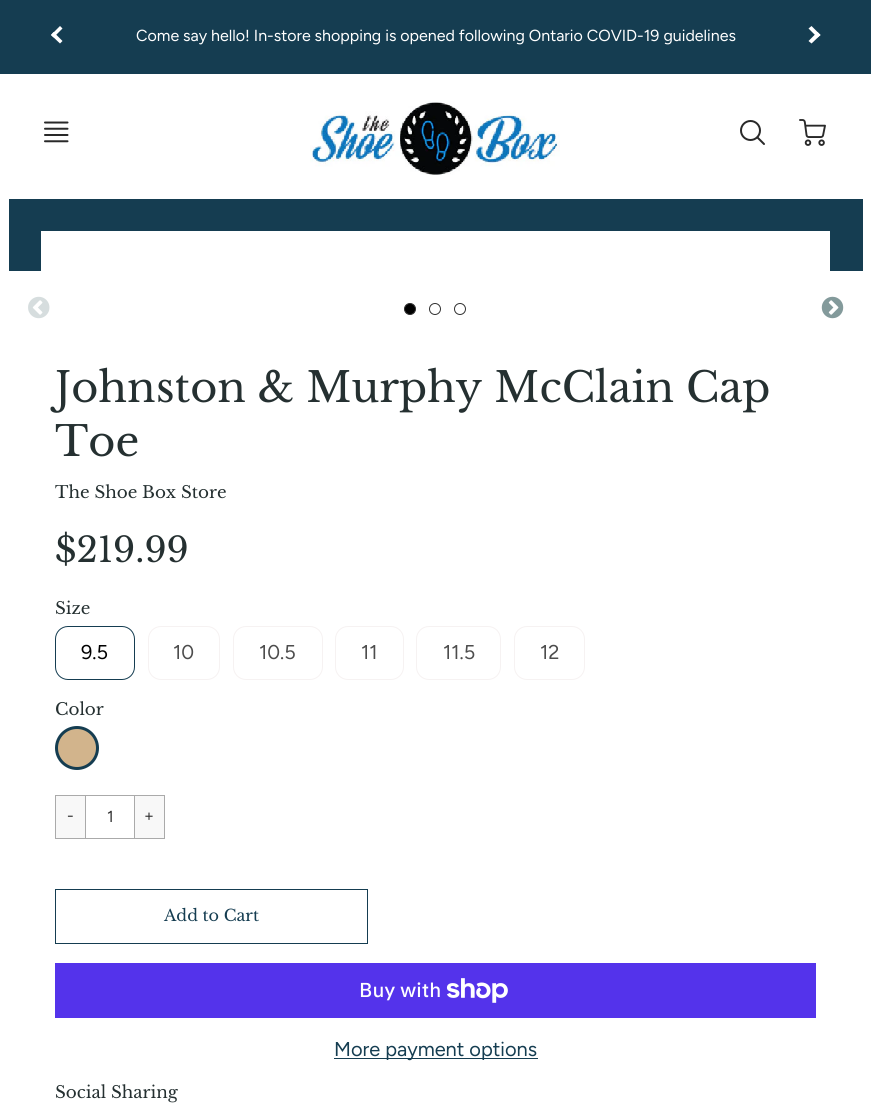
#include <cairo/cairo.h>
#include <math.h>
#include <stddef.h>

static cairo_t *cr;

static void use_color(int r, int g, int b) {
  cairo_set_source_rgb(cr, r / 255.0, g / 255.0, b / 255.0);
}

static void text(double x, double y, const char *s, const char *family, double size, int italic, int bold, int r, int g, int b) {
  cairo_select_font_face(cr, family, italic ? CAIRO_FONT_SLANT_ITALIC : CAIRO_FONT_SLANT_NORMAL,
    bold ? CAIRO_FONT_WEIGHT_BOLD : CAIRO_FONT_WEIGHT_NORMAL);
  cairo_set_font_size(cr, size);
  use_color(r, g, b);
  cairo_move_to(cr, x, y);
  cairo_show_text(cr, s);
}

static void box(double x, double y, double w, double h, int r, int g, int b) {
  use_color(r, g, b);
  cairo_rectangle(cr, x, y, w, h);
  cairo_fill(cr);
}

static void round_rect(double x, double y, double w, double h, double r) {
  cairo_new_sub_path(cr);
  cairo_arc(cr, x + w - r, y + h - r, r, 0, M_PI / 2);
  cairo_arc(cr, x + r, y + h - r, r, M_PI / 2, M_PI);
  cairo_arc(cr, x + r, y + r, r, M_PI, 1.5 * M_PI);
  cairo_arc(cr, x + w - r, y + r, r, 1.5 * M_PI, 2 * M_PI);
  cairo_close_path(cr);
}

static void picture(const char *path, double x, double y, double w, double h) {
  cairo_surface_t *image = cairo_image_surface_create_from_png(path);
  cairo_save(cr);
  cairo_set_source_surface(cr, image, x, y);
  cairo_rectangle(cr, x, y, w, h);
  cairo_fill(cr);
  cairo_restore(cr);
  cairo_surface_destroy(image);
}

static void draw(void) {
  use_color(255, 255, 255);
  cairo_paint(cr);
  box(0, 0, 871, 74, 21, 61, 81);
  use_color(255, 255, 255);
  cairo_new_path(cr);
  cairo_move_to(cr, 60, 43.5);
  cairo_line_to(cr, 51, 35);
  cairo_line_to(cr, 53.5, 32);
  cairo_line_to(cr, 62.5, 41);
  cairo_close_path(cr);
  cairo_fill(cr);
  cairo_new_path(cr);
  cairo_move_to(cr, 53.5, 37.5);
  cairo_line_to(cr, 51, 35);
  cairo_line_to(cr, 60, 26);
  cairo_line_to(cr, 62.5, 28.5);
  cairo_close_path(cr);
  cairo_fill(cr);
  cairo_new_path(cr);
  cairo_move_to(cr, 811.5, 26);
  cairo_line_to(cr, 820.5, 35);
  cairo_line_to(cr, 817.5, 37.5);
  cairo_line_to(cr, 808.5, 28.5);
  cairo_close_path(cr);
  cairo_fill(cr);
  cairo_new_path(cr);
  cairo_move_to(cr, 817.5, 32);
  cairo_line_to(cr, 820.5, 35);
  cairo_line_to(cr, 811.5, 43.5);
  cairo_line_to(cr, 808.5, 41);
  cairo_close_path(cr);
  cairo_fill(cr);
  picture("img_01.png", 44, 121, 25, 22);
  picture("img_02.png", 310, 101, 250, 74);
  cairo_arc(cr, 750.5, 130.5, 9.5, 0, 2 * M_PI);
  use_color(41, 41, 41);
  cairo_stroke(cr);
  cairo_new_path(cr);
  cairo_move_to(cr, 764, 144);
  cairo_line_to(cr, 757.5, 137.5);
  cairo_set_line_cap(cr, CAIRO_LINE_CAP_ROUND);
  cairo_set_line_join(cr, CAIRO_LINE_JOIN_ROUND);
  cairo_stroke(cr);
  picture("img_03.png", 799, 119, 27, 27);
  box(9, 199, 854, 72, 21, 61, 81);
  box(41, 231, 789, 40, 255, 255, 255);
  picture("img_04.png", 28, 296, 22, 23);
  use_color(0, 0, 0);
  cairo_arc(cr, 410, 309, 5.5, 0, 2 * M_PI);
  cairo_fill_preserve(cr);
  use_color(49, 49, 49);
  cairo_set_line_width(cr, 1);
  cairo_set_line_cap(cr, CAIRO_LINE_CAP_BUTT);
  cairo_set_line_join(cr, CAIRO_LINE_JOIN_MITER);
  cairo_stroke(cr);
  cairo_arc(cr, 435, 309, 5.5, 0, 2 * M_PI);
  cairo_stroke(cr);
  cairo_arc(cr, 460, 309, 5.5, 0, 2 * M_PI);
  cairo_stroke(cr);
  picture("img_05.png", 821, 296, 23, 23);
  round_rect(55.5, 626.5, 79, 53, 12.5);
  use_color(21, 61, 81);
  cairo_stroke(cr);
  round_rect(148.5, 626.5, 71, 53, 12.5);
  use_color(246, 242, 242);
  cairo_stroke(cr);
  round_rect(233.5, 626.5, 89, 53, 12.5);
  cairo_stroke(cr);
  round_rect(335.5, 626.5, 68, 53, 12.5);
  cairo_stroke(cr);
  round_rect(416.5, 626.5, 84, 53, 12.5);
  cairo_stroke(cr);
  round_rect(514.5, 626.5, 70, 53, 12.5);
  cairo_stroke(cr);
  use_color(210, 180, 140);
  cairo_arc(cr, 77, 748, 20.5, 0, 2 * M_PI);
  cairo_fill_preserve(cr);
  use_color(21, 61, 81);
  cairo_set_line_width(cr, 3);
  cairo_stroke(cr);
  box(85, 795, 50, 1, 170, 170, 170);
  box(85, 838, 50, 1, 170, 170, 170);
  use_color(248, 248, 248);
  cairo_rectangle(cr, 55.5, 795.5, 30, 43);
  cairo_fill_preserve(cr);
  use_color(170, 170, 170);
  cairo_set_line_width(cr, 1);
  cairo_stroke(cr);
  use_color(248, 248, 248);
  cairo_rectangle(cr, 134.5, 795.5, 30, 43);
  cairo_fill_preserve(cr);
  use_color(170, 170, 170);
  cairo_stroke(cr);
  cairo_rectangle(cr, 55.5, 889.5, 312, 54);
  use_color(21, 61, 81);
  cairo_stroke(cr);
  box(55, 963, 761, 55, 84, 51, 235);
  picture("img_06.png", 446, 978, 62, 25);
  box(334, 1058, 204, 1, 21, 61, 81);
  text(136, 41, "Come say hello! In-store shopping is opened following Ontario COVID-19 guidelines", "Figtree", 16, 0, 0, 255, 255, 255);
  text(55, 402, "Johnston & Murphy McClain Cap", "Libre Baskerville", 41.5, 0, 0, 37, 48, 49);
  text(55, 456, "Toe", "Libre Baskerville", 41.5, 0, 0, 37, 48, 49);
  text(55, 498, "The Shoe Box Store", "Libre Baskerville", 16.75, 0, 0, 37, 48, 49);
  text(55, 562, "$219.99", "Libre Baskerville", 34.5, 0, 0, 37, 48, 49);
  text(55, 614, "Size", "Libre Baskerville", 16.75, 0, 0, 37, 48, 49);
  text(81, 659, "9.5", "Figtree", 20, 0, 0, 0, 0, 0);
  text(173, 659, "10", "Figtree", 20, 0, 0, 77, 77, 77);
  text(259, 659, "10.5", "Figtree", 20, 0, 0, 77, 77, 77);
  text(361, 659, "11", "Figtree", 20, 0, 0, 77, 77, 77);
  text(443, 659, "11.5", "Figtree", 20, 0, 0, 77, 77, 77);
  text(540, 659, "12", "Figtree", 20, 0, 0, 77, 77, 77);
  text(55, 715, "Color", "Libre Baskerville", 16.75, 0, 0, 37, 48, 49);
  text(67, 821, "-", "Figtree", 16, 0, 0, 49, 49, 49);
  text(107, 822, "1", "Figtree", 16, 0, 0, 49, 49, 49);
  text(144, 821, "+", "Figtree", 16, 0, 0, 49, 49, 49);
  text(164, 921, "Add to Cart", "Libre Baskerville", 16, 0, 0, 21, 61, 81);
  text(359, 997, "Buy with", "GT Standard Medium", 20, 0, 0, 255, 255, 255);
  text(334, 1056, "More payment options", "Figtree", 20, 0, 0, 21, 61, 81);
  text(55, 1098, "Social Sharing", "Libre Baskerville", 16.75, 0, 0, 37, 48, 49);
}

int main(void) {
  cairo_surface_t *surface = cairo_image_surface_create(CAIRO_FORMAT_RGB24, 871, 1109);
  cr = cairo_create(surface);
  cairo_font_options_t *options = cairo_font_options_create();
  cairo_font_options_set_hint_metrics(options, CAIRO_HINT_METRICS_OFF);
  cairo_font_options_set_hint_style(options, CAIRO_HINT_STYLE_NONE);
  cairo_set_font_options(cr, options);
  cairo_set_miter_limit(cr, 4);
  draw();
  cairo_surface_write_to_png(surface, "out.png");
  cairo_font_options_destroy(options);
  cairo_destroy(cr);
  cairo_surface_destroy(surface);
  return 0;
}
